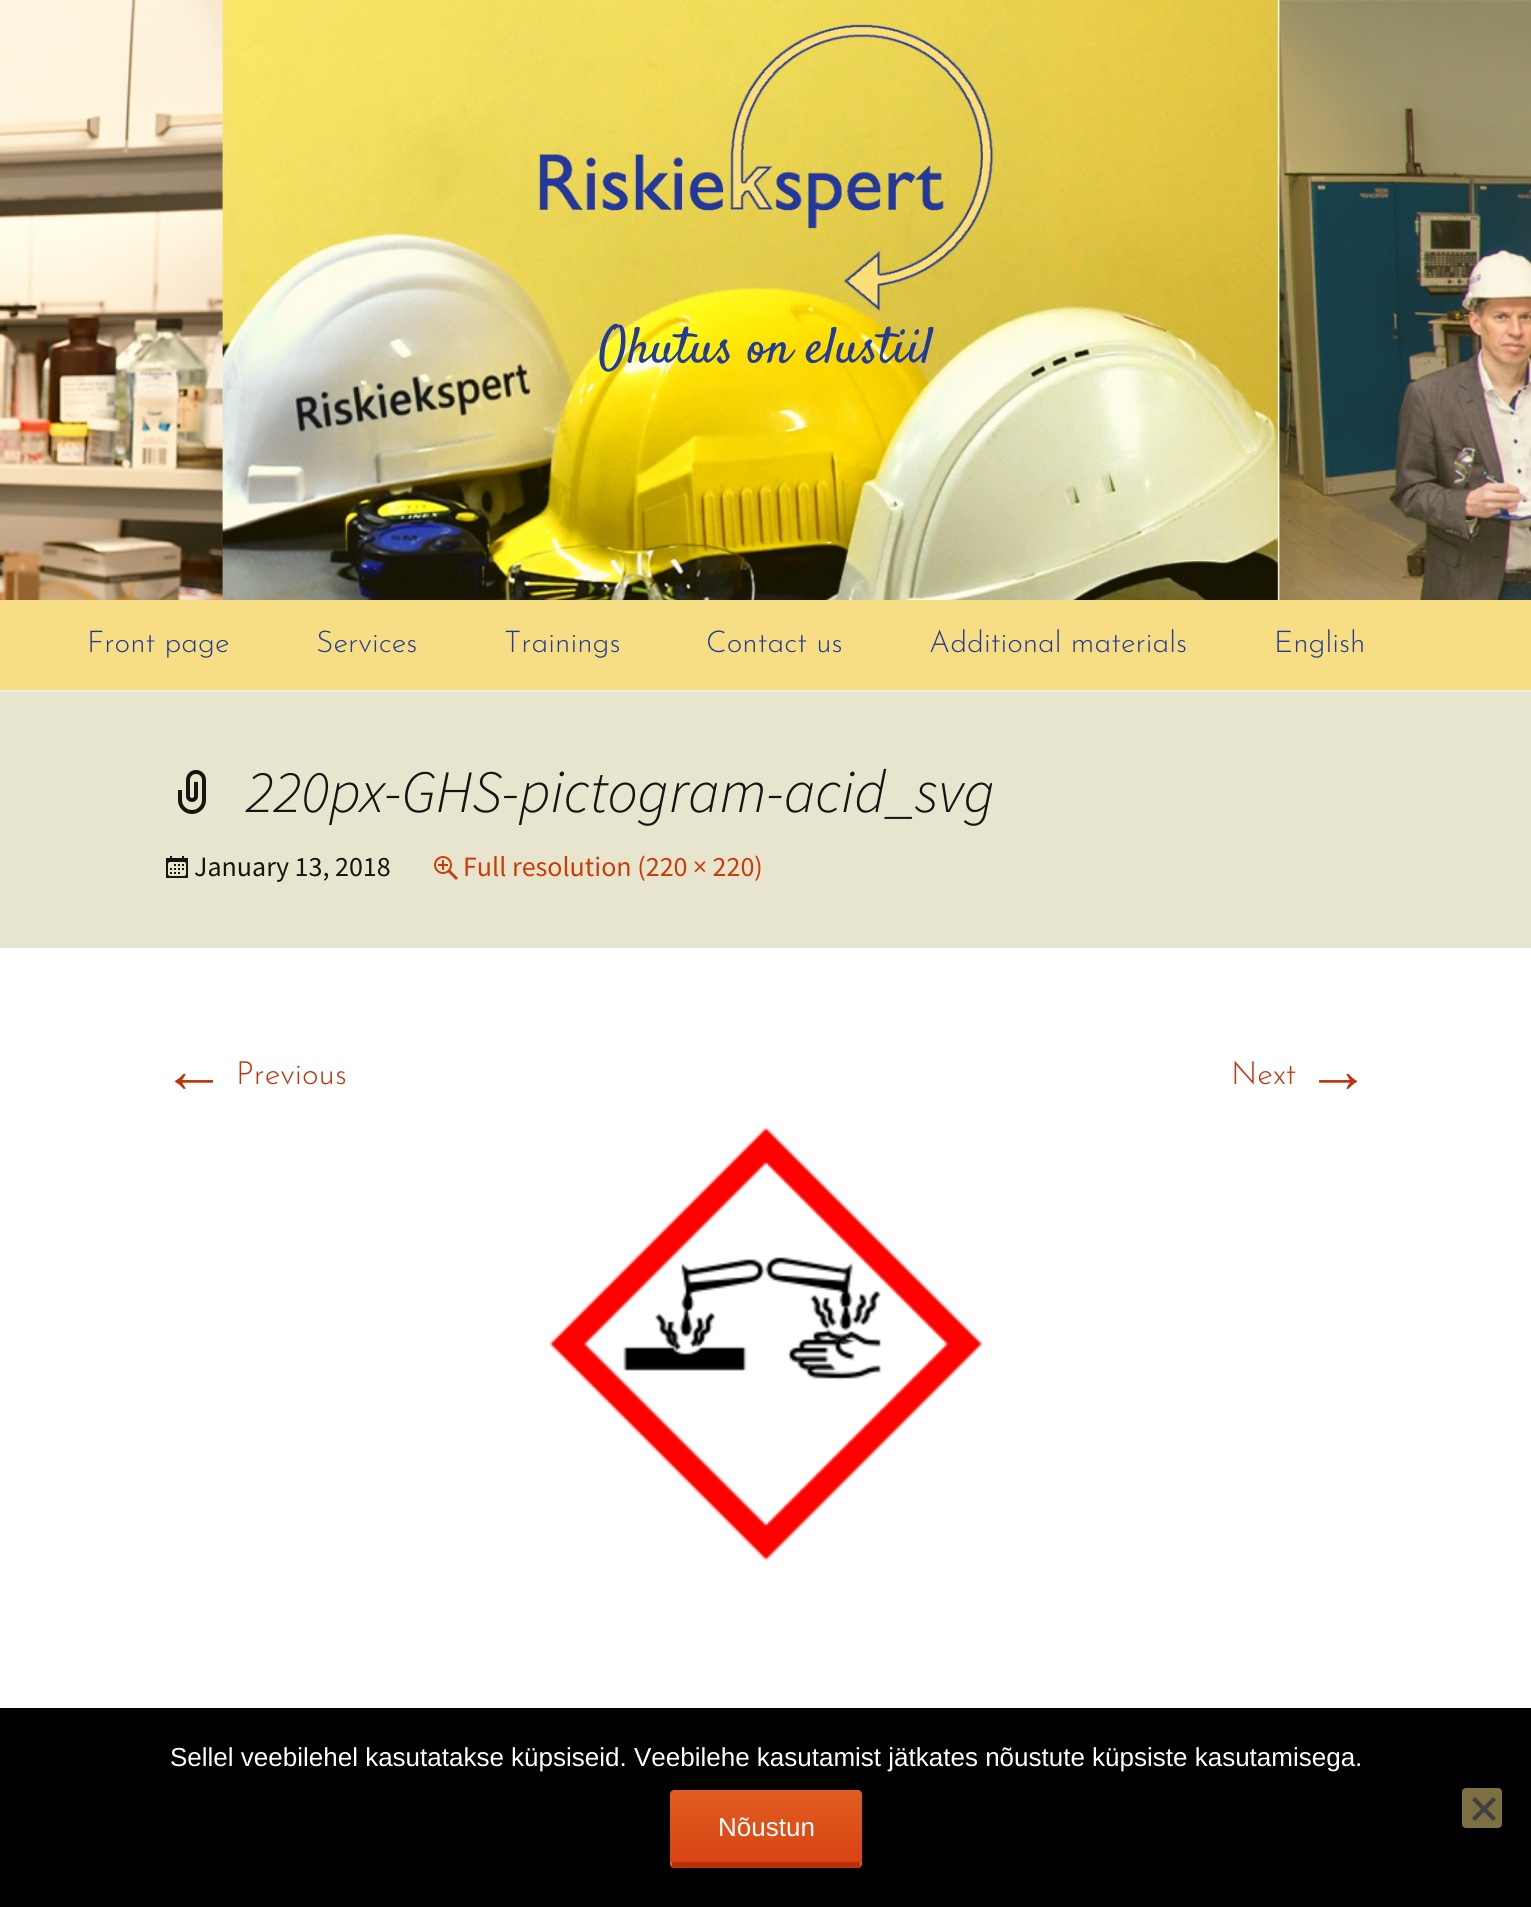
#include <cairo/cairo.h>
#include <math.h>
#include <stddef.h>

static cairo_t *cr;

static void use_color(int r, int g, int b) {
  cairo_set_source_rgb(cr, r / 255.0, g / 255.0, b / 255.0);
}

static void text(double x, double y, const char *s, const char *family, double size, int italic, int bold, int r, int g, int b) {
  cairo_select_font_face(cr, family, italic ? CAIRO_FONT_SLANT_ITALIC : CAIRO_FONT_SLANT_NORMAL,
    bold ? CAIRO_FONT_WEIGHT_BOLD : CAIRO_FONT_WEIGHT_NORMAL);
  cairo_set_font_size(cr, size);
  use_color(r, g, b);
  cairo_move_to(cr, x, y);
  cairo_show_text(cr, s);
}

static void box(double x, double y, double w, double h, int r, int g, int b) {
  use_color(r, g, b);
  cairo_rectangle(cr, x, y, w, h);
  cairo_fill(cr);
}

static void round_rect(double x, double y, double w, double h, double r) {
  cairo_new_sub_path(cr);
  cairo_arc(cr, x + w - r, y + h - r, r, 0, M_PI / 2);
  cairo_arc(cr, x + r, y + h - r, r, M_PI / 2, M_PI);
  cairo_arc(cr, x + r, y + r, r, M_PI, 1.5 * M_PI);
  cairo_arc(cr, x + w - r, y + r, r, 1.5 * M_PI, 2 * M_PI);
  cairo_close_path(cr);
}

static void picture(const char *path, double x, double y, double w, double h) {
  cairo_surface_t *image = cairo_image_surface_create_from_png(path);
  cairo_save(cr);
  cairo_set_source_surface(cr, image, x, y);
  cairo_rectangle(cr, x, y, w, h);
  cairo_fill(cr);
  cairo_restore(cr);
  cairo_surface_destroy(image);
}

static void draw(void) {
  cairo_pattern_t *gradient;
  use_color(255, 255, 255);
  cairo_paint(cr);
  picture("img_01.png", 0, 0, 1531, 600);
  picture("img_02.png", 539, 24, 455, 288);
  box(0, 600, 1531, 90, 247, 222, 132);
  box(0, 690, 1531, 2, 237, 237, 237);
  box(0, 692, 1531, 256, 232, 229, 206);
  picture("img_03.png", 178, 770, 28, 44);
  picture("img_04.png", 166, 856, 22, 22);
  picture("img_05.png", 434, 856, 24, 24);
  picture("img_06.png", 549, 1127, 434, 434);
  box(0, 1708, 1531, 199, 0, 0, 0);
  gradient = cairo_pattern_create_linear(766, 1790, 766, 1862);
  cairo_pattern_add_color_stop_rgba(gradient, 0, 0.878, 0.365, 0.133, 1);
  cairo_pattern_add_color_stop_rgba(gradient, 1, 0.851, 0.267, 0.071, 1);
  cairo_set_source(cr, gradient);
  cairo_pattern_destroy(gradient);
  cairo_new_path(cr);
  cairo_move_to(cr, 674, 1790);
  cairo_line_to(cr, 858, 1790);
  cairo_curve_to(cr, 860, 1790, 862, 1792, 862, 1794);
  cairo_line_to(cr, 862, 1862);
  cairo_line_to(cr, 670, 1862);
  cairo_line_to(cr, 670, 1794);
  cairo_curve_to(cr, 670, 1792, 672, 1790, 674, 1790);
  cairo_close_path(cr);
  cairo_fill(cr);
  gradient = cairo_pattern_create_linear(766, 1862, 766, 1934);
  cairo_pattern_add_color_stop_rgba(gradient, 0, 0.878, 0.365, 0.133, 1);
  cairo_pattern_add_color_stop_rgba(gradient, 1, 0.851, 0.267, 0.071, 1);
  cairo_set_source(cr, gradient);
  cairo_pattern_destroy(gradient);
  cairo_new_path(cr);
  cairo_move_to(cr, 670, 1862);
  cairo_line_to(cr, 862, 1862);
  cairo_line_to(cr, 862, 1864);
  cairo_curve_to(cr, 862, 1866, 860, 1868, 858, 1868);
  cairo_line_to(cr, 674, 1868);
  cairo_curve_to(cr, 672, 1868, 670, 1866, 670, 1864);
  cairo_close_path(cr);
  cairo_fill(cr);
  box(672, 1862, 188, 6, 185, 50, 7);
  use_color(124, 111, 66);
  round_rect(1462, 1788, 40, 40, 4);
  cairo_fill(cr);
  use_color(64, 64, 64);
  cairo_new_path(cr);
  cairo_move_to(cr, 1493, 1797);
  cairo_line_to(cr, 1496, 1800);
  cairo_line_to(cr, 1475, 1821);
  cairo_line_to(cr, 1472, 1818);
  cairo_close_path(cr);
  cairo_fill(cr);
  cairo_new_path(cr);
  cairo_move_to(cr, 1472, 1800);
  cairo_line_to(cr, 1475, 1797);
  cairo_line_to(cr, 1496, 1818);
  cairo_line_to(cr, 1493, 1821);
  cairo_close_path(cr);
  cairo_fill(cr);
  text(599, 362, "Ohutus on elustiil", "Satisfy", 51.25, 0, 0, 35, 59, 150);
  text(87, 652, "Front page", "Josefin Sans Thin", 30, 0, 0, 35, 59, 150);
  text(316, 652, "Services", "Josefin Sans Thin", 30, 0, 0, 35, 59, 150);
  text(504, 652, "Trainings", "Josefin Sans Thin", 30, 0, 0, 35, 59, 150);
  text(706, 652, "Contact us", "Josefin Sans Thin", 30, 0, 0, 35, 59, 150);
  text(929, 652, "Additional materials", "Josefin Sans Thin", 30, 0, 0, 35, 59, 150);
  text(1274, 652, "English", "Josefin Sans Thin", 30, 0, 0, 35, 59, 150);
  text(246, 812, "220px-GHS-pictogram-acid_svg", "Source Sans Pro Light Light", 60, 1, 0, 20, 20, 18);
  text(194, 876, "January 13, 2018", "Source Sans Pro", 28, 0, 0, 20, 20, 18);
  text(463, 876, "Full resolution (220 × 220)", "Source Sans Pro", 28, 0, 0, 202, 60, 8);
  text(162, 1092, "←", "Liberation Sans", 64, 0, 0, 188, 54, 10);
  text(236, 1084, "Previous", "Josefin Sans Thin", 32, 0, 0, 188, 54, 10);
  text(1231, 1084, "Next", "Josefin Sans Thin", 32, 0, 0, 188, 54, 10);
  text(1306, 1092, "→", "Liberation Sans", 64, 0, 0, 188, 54, 10);
  text(170, 1766, "Sellel veebilehel kasutatakse küpsiseid. Veebilehe kasutamist jätkates nõustute küpsiste kasutamisega.", "Liberation Sans", 26, 0, 0, 255, 255, 255);
  text(718, 1836, "Nõustun", "Liberation Sans", 26, 0, 0, 255, 255, 255);
}

int main(void) {
  cairo_surface_t *surface = cairo_image_surface_create(CAIRO_FORMAT_RGB24, 1531, 1907);
  cr = cairo_create(surface);
  cairo_font_options_t *options = cairo_font_options_create();
  cairo_font_options_set_hint_metrics(options, CAIRO_HINT_METRICS_OFF);
  cairo_font_options_set_hint_style(options, CAIRO_HINT_STYLE_NONE);
  cairo_set_font_options(cr, options);
  cairo_set_miter_limit(cr, 4);
  draw();
  cairo_surface_write_to_png(surface, "out.png");
  cairo_font_options_destroy(options);
  cairo_destroy(cr);
  cairo_surface_destroy(surface);
  return 0;
}
